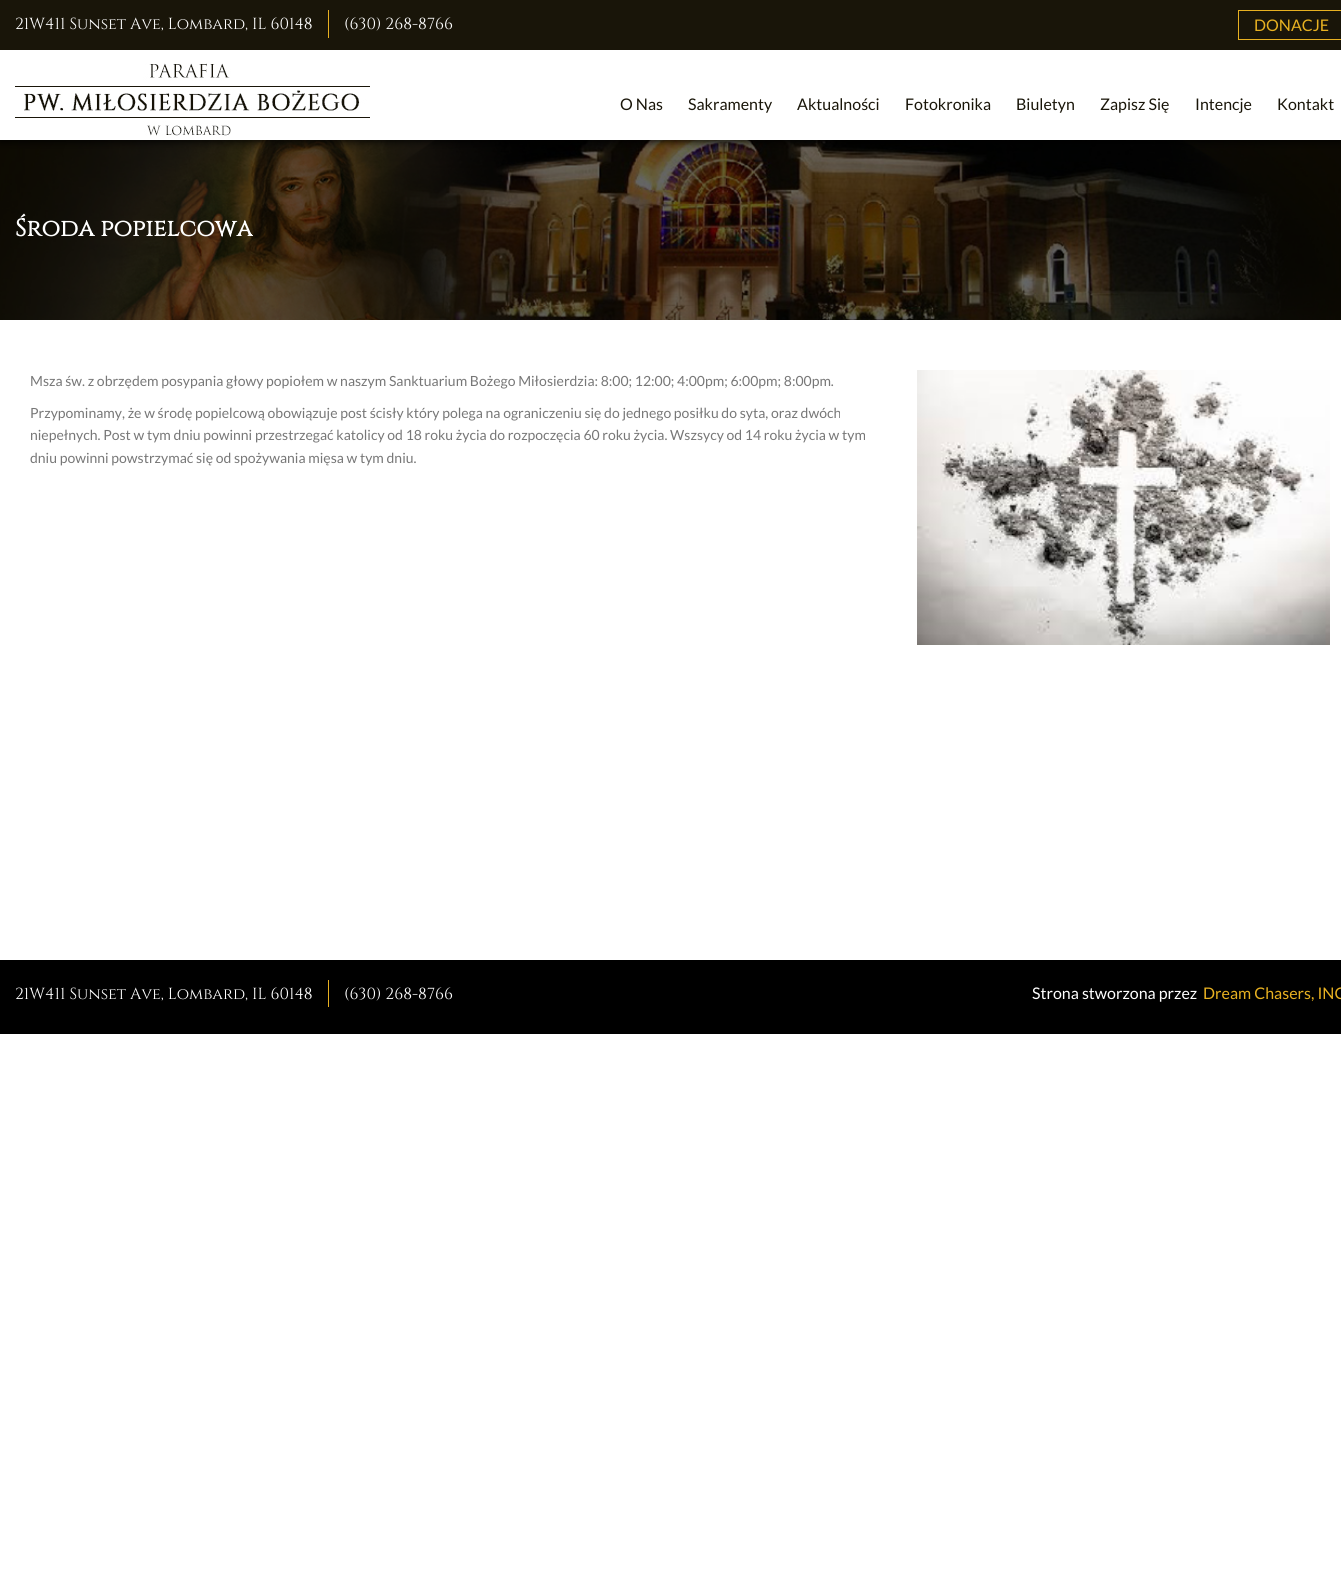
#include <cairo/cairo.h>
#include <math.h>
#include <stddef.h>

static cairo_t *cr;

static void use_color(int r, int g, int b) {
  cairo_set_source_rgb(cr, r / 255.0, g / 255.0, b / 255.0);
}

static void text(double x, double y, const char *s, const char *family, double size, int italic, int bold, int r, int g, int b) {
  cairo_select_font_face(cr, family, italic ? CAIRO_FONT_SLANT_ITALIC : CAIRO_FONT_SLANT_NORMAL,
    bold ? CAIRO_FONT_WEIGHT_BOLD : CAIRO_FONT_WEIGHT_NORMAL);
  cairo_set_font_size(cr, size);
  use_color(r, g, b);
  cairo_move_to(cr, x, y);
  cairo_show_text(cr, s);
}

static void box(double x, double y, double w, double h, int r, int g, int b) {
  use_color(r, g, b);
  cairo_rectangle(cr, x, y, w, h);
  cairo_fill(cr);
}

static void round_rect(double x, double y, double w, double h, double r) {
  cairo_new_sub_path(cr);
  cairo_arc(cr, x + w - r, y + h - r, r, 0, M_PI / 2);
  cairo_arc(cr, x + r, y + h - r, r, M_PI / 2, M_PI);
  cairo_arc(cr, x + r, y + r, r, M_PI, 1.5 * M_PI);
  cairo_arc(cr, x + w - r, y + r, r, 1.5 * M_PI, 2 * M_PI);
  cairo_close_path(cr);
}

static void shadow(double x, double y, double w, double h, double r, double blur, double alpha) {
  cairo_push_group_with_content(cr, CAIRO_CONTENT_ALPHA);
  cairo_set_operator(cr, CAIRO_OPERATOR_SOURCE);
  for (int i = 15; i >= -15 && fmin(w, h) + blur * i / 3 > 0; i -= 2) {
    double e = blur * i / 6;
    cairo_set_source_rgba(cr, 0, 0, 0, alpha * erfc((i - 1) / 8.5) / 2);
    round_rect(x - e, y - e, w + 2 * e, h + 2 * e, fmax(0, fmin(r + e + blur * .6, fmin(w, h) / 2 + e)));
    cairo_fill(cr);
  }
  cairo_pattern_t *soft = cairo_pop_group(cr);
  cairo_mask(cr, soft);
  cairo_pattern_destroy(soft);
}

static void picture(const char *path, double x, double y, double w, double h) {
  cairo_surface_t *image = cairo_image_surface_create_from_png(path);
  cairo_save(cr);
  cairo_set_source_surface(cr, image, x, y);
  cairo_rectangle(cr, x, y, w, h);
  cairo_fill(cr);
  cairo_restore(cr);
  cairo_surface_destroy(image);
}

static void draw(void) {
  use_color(255, 255, 255);
  cairo_paint(cr);
  picture("img_02.png", 0, 140, 1341, 180);
  cairo_save(cr);
  cairo_rectangle(cr, 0, 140, 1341, 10);
  cairo_clip(cr);
  use_color(0, 0, 0);
  shadow(0, 1, 1341, 140, 0, 4.5, 1);
  cairo_restore(cr);
  box(0, 0, 1341, 50, 25, 21, 9);
  box(328, 10, 1, 28, 232, 177, 33);
  cairo_rectangle(cr, 1238.5, 10.5, 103, 29);
  cairo_set_line_width(cr, 1);
  cairo_stroke(cr);
  picture("img_01.png", 15, 63, 355, 73);
  picture("img_03.png", 917, 370, 413, 275);
  box(0, 960, 1341, 74, 0, 0, 0);
  box(328, 980, 1, 27, 232, 177, 33);
  text(15, 29, "21W411 Sunset Ave, Lombard, IL 60148", "Cinzel", 16, 0, 0, 255, 255, 255);
  text(344, 29, "(630) 268-8766", "Cinzel", 16, 0, 0, 255, 255, 255);
  text(1254, 31, "DONACJE", "Lato", 16, 0, 0, 232, 177, 33);
  text(620, 110, "O Nas", "Lato", 16, 0, 0, 25, 21, 9);
  text(688, 110, "Sakramenty", "Lato", 16, 0, 0, 25, 21, 9);
  text(797, 110, "Aktualności", "Lato", 16, 0, 0, 25, 21, 9);
  text(905, 110, "Fotokronika", "Lato", 16, 0, 0, 25, 21, 9);
  text(1016, 110, "Biuletyn", "Lato", 16, 0, 0, 25, 21, 9);
  text(1100, 110, "Zapisz Się", "Lato", 16, 0, 0, 25, 21, 9);
  text(1195, 110, "Intencje", "Lato", 16, 0, 0, 25, 21, 9);
  text(1277, 110, "Kontakt", "Lato", 16, 0, 0, 25, 21, 9);
  text(15, 236, "Środa popielcowa", "Cinzel", 24, 0, 1, 255, 255, 255);
  text(30, 386, "Msza św. z obrzędem posypania głowy popiołem w naszym Sanktuarium Bożego Miłosierdzia: 8:00; 12:00; 4:00pm; 6:00pm; 8:00pm.", "Lato", 14, 0, 0, 119, 119, 119);
  text(30, 418, "Przypominamy, że w środę popielcową obowiązuje post ścisły który polega na ograniczeniu się do jednego posiłku do syta, oraz dwóch", "Lato", 14, 0, 0, 119, 119, 119);
  text(30, 440, "niepełnych. Post w tym dniu powinni przestrzegać katolicy od 18 roku życia do rozpoczęcia 60 roku życia. Wszsycy od 14 roku życia w tym", "Lato", 14, 0, 0, 119, 119, 119);
  text(30, 463, "dniu powinni powstrzymać się od spożywania mięsa w tym dniu.", "Lato", 14, 0, 0, 119, 119, 119);
  text(15, 999, "21W411 Sunset Ave, Lombard, IL 60148", "Cinzel", 16, 0, 0, 255, 255, 255);
  text(344, 999, "(630) 268-8766", "Cinzel", 16, 0, 0, 255, 255, 255);
  text(1032, 999, "Strona stworzona przez", "Lato", 16, 0, 0, 255, 255, 255);
  text(1203, 999, "Dream Chasers, INC", "Lato", 16, 0, 0, 232, 177, 33);
}

int main(void) {
  cairo_surface_t *surface = cairo_image_surface_create(CAIRO_FORMAT_RGB24, 1341, 1576);
  cr = cairo_create(surface);
  cairo_font_options_t *options = cairo_font_options_create();
  cairo_font_options_set_hint_metrics(options, CAIRO_HINT_METRICS_OFF);
  cairo_font_options_set_hint_style(options, CAIRO_HINT_STYLE_NONE);
  cairo_set_font_options(cr, options);
  cairo_set_miter_limit(cr, 4);
  draw();
  cairo_surface_write_to_png(surface, "out.png");
  cairo_font_options_destroy(options);
  cairo_destroy(cr);
  cairo_surface_destroy(surface);
  return 0;
}
